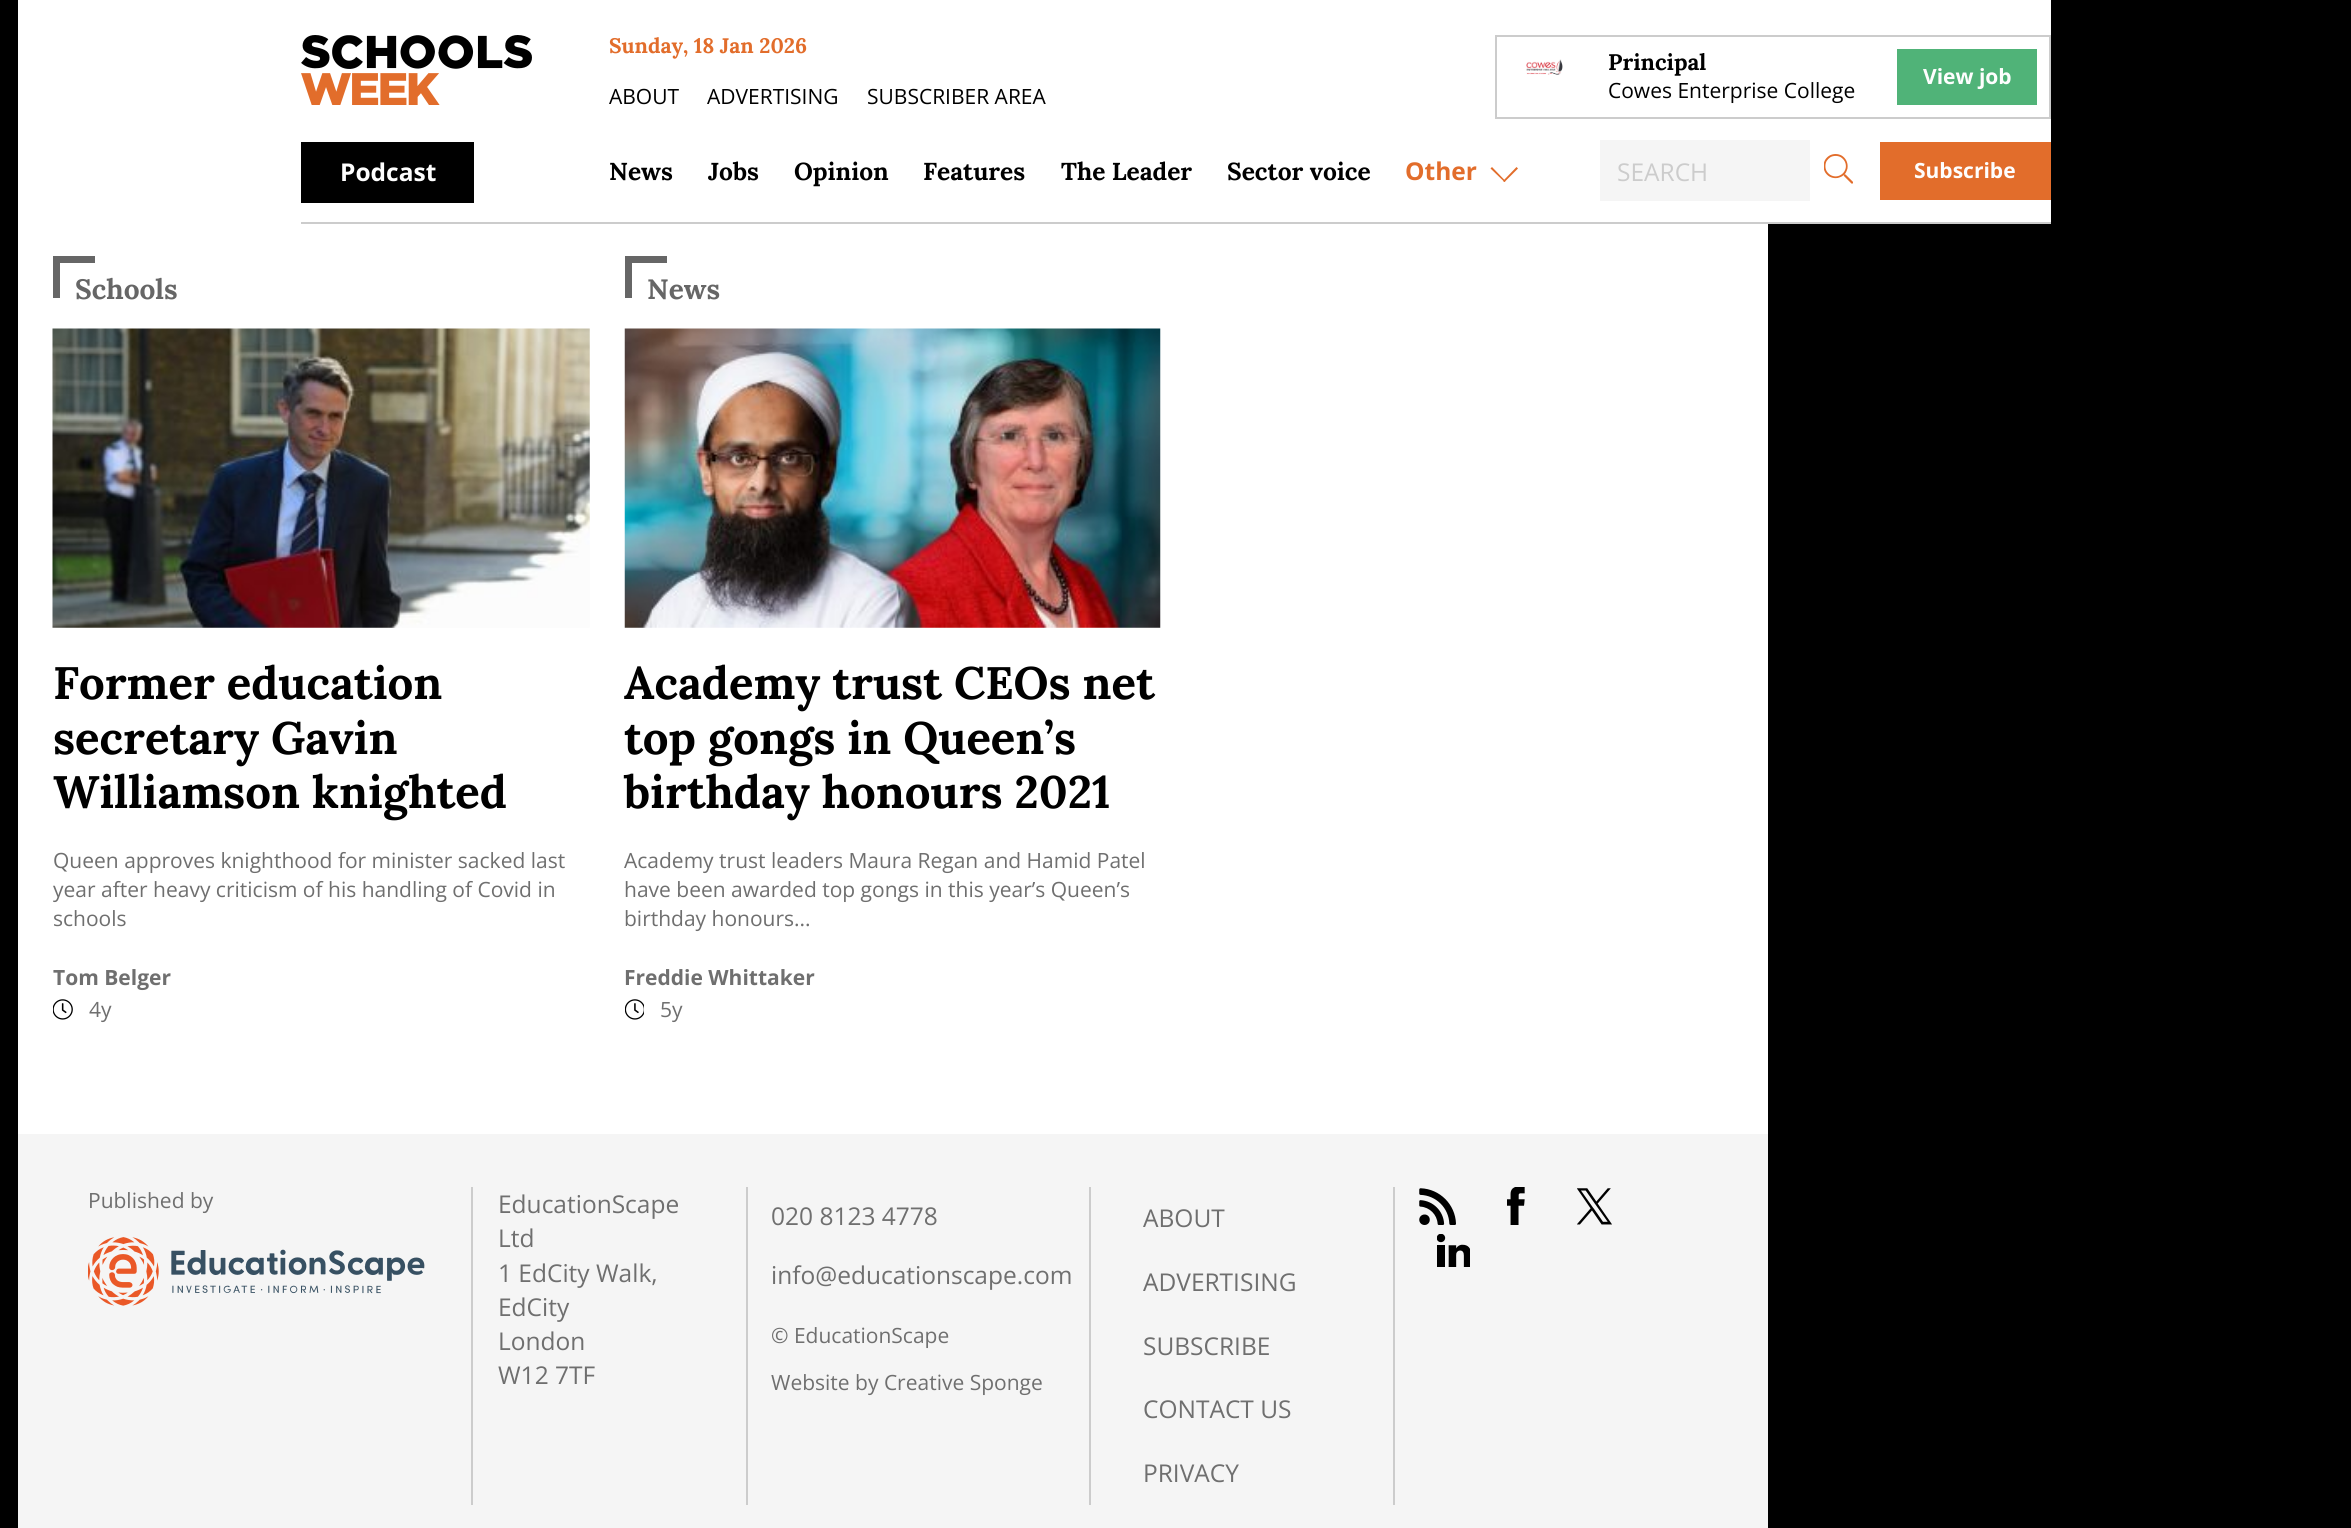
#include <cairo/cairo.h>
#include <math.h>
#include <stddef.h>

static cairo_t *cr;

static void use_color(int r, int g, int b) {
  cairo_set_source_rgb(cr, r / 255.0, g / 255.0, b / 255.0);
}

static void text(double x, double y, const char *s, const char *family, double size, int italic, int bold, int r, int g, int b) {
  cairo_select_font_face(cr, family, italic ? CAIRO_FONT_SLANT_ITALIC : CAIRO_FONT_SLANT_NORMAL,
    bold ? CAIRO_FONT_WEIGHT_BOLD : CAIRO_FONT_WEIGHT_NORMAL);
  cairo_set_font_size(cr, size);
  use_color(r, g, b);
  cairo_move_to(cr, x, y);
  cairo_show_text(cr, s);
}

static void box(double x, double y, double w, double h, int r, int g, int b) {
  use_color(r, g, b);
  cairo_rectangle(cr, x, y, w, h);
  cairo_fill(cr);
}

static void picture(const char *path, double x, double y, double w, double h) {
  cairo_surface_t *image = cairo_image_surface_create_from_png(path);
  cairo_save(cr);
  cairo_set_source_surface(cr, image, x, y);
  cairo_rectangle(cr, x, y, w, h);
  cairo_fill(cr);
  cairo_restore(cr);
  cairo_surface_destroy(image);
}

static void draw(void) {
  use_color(0, 0, 0);
  cairo_paint(cr);
  box(1768, 0, 283, 222, 255, 255, 255);
  box(18, 0, 1750, 1134, 255, 255, 255);
  box(301, 222, 1750, 2, 204, 204, 204);
  picture("img_01.png", 301, 35, 231, 70);
  cairo_rectangle(cr, 1496, 36, 554, 82);
  cairo_stroke(cr);
  picture("img_02.png", 1526, 59, 37, 16);
  box(1897, 49, 140, 56, 80, 179, 120);
  box(301, 142, 173, 61, 0, 0, 0);
  use_color(226, 109, 43);
  cairo_new_path(cr);
  cairo_move_to(cr, 1503, 181);
  cairo_line_to(cr, 1516.5, 167);
  cairo_line_to(cr, 1518, 168.5);
  cairo_line_to(cr, 1504.5, 182);
  cairo_close_path(cr);
  cairo_fill(cr);
  cairo_new_path(cr);
  cairo_move_to(cr, 1490.5, 168.5);
  cairo_line_to(cr, 1492, 167);
  cairo_line_to(cr, 1505.5, 181);
  cairo_line_to(cr, 1504.5, 182);
  cairo_close_path(cr);
  cairo_fill(cr);
  box(1600, 140, 210, 61, 245, 245, 245);
  picture("img_03.png", 1824, 154, 29, 30);
  box(1880, 142, 171, 58, 226, 109, 43);
  box(53, 256, 42, 7, 102, 102, 102);
  box(53, 256, 7, 42, 102, 102, 102);
  picture("img_04.png", 52, 328, 538, 300);
  picture("img_05.png", 53, 999, 20, 21);
  box(625, 256, 42, 7, 102, 102, 102);
  box(625, 256, 7, 42, 102, 102, 102);
  picture("img_06.png", 624, 328, 537, 300);
  picture("img_07.png", 625, 999, 19, 21);
  box(18, 1134, 1750, 394, 245, 245, 245);
  box(471, 1187, 2, 318, 204, 204, 204);
  picture("img_08.png", 88, 1237, 337, 69);
  box(746, 1187, 2, 318, 204, 204, 204);
  box(1089, 1187, 2, 318, 204, 204, 204);
  box(1393, 1187, 2, 318, 204, 204, 204);
  picture("img_09.png", 1419, 1188, 37, 37);
  picture("img_10.png", 1507, 1187, 18, 38);
  picture("img_11.png", 1577, 1188, 35, 37);
  picture("img_12.png", 1437, 1234, 33, 33);
  text(609, 53, "Sunday, 18 Jan 2026", "Lora", 21, 0, 1, 226, 109, 43);
  text(609, 104, "ABOUT", "Open Sans", 21, 0, 0, 0, 0, 0);
  text(707, 104, "ADVERTISING", "Open Sans", 21, 0, 0, 0, 0, 0);
  text(867, 104, "SUBSCRIBER AREA", "Open Sans", 21, 0, 0, 0, 0, 0);
  text(1608, 70, "Principal", "Lora", 22.5, 0, 1, 0, 0, 0);
  text(1608, 98, "Cowes Enterprise College", "Open Sans", 21, 0, 0, 0, 0, 0);
  text(1923, 84, "View job", "Open Sans", 21, 0, 1, 254, 254, 254);
  text(340, 181, "Podcast", "Open Sans", 24.5, 0, 1, 254, 254, 254);
  text(609, 180, "News", "Lora", 24.5, 0, 1, 0, 0, 0);
  text(708, 180, "Jobs", "Lora", 24.5, 0, 1, 0, 0, 0);
  text(794, 180, "Opinion", "Lora", 24.5, 0, 1, 0, 0, 0);
  text(923, 180, "Features", "Lora", 24.5, 0, 1, 0, 0, 0);
  text(1061, 180, "The Leader", "Lora", 24.5, 0, 1, 0, 0, 0);
  text(1227, 180, "Sector voice", "Lora", 24.5, 0, 1, 0, 0, 0);
  text(1405, 180, "Other", "Open Sans", 24.5, 0, 1, 226, 109, 43);
  text(1617, 181, "SEARCH", "Open Sans", 24.5, 0, 0, 204, 204, 204);
  text(1914, 178, "Subscribe", "Open Sans", 21, 0, 1, 254, 254, 254);
  text(75, 299, "Schools", "Lora", 28, 0, 1, 102, 102, 102);
  text(53, 699, "Former education", "Lora", 45.5, 0, 1, 0, 0, 0);
  text(53, 754, "secretary Gavin", "Lora", 45.5, 0, 1, 0, 0, 0);
  text(53, 808, "Williamson knighted", "Lora", 45.5, 0, 1, 0, 0, 0);
  text(53, 868, "Queen approves knighthood for minister sacked last", "Open Sans", 21, 0, 0, 111, 111, 111);
  text(53, 897, "year after heavy criticism of his handling of Covid in", "Open Sans", 21, 0, 0, 111, 111, 111);
  text(53, 926, "schools", "Open Sans", 21, 0, 0, 111, 111, 111);
  text(53, 985, "Tom Belger", "Open Sans", 21, 0, 1, 111, 111, 111);
  text(89, 1017, "4y", "Open Sans", 21, 0, 0, 111, 111, 111);
  text(647, 299, "News", "Lora", 28, 0, 1, 102, 102, 102);
  text(624, 699, "Academy trust CEOs net", "Lora", 45.5, 0, 1, 0, 0, 0);
  text(624, 754, "top gongs in Queen’s", "Lora", 45.5, 0, 1, 0, 0, 0);
  text(624, 808, "birthday honours 2021", "Lora", 45.5, 0, 1, 0, 0, 0);
  text(624, 868, "Academy trust leaders Maura Regan and Hamid Patel", "Open Sans", 21, 0, 0, 111, 111, 111);
  text(624, 897, "have been awarded top gongs in this year’s Queen’s", "Open Sans", 21, 0, 0, 111, 111, 111);
  text(624, 926, "birthday honours...", "Open Sans", 21, 0, 0, 111, 111, 111);
  text(624, 985, "Freddie Whittaker", "Open Sans", 21, 0, 1, 111, 111, 111);
  text(660, 1017, "5y", "Open Sans", 21, 0, 0, 111, 111, 111);
  text(88, 1208, "Published by", "Open Sans", 21, 0, 0, 111, 111, 111);
  text(498, 1213, "EducationScape", "Open Sans", 24.5, 0, 0, 111, 111, 111);
  text(498, 1247, "Ltd", "Open Sans", 24.5, 0, 0, 111, 111, 111);
  text(498, 1282, "1 EdCity Walk,", "Open Sans", 24.5, 0, 0, 111, 111, 111);
  text(498, 1316, "EdCity", "Open Sans", 24.5, 0, 0, 111, 111, 111);
  text(498, 1350, "London", "Open Sans", 24.5, 0, 0, 111, 111, 111);
  text(498, 1384, "W12 7TF", "Open Sans", 24.5, 0, 0, 111, 111, 111);
  text(771, 1225, "020 8123 4778", "Open Sans", 24.5, 0, 0, 111, 111, 111);
  text(771, 1284, "info@educationscape.com", "Open Sans", 24.5, 0, 0, 111, 111, 111);
  text(771, 1343, "© EducationScape", "Open Sans", 21, 0, 0, 111, 111, 111);
  text(771, 1390, "Website by Creative Sponge", "Open Sans", 21, 0, 0, 111, 111, 111);
  text(1143, 1227, "ABOUT", "Open Sans", 24.5, 0, 0, 111, 111, 111);
  text(1143, 1291, "ADVERTISING", "Open Sans", 24.5, 0, 0, 111, 111, 111);
  text(1143, 1355, "SUBSCRIBE", "Open Sans", 24.5, 0, 0, 111, 111, 111);
  text(1143, 1418, "CONTACT US", "Open Sans", 24.5, 0, 0, 111, 111, 111);
  text(1143, 1482, "PRIVACY", "Open Sans", 24.5, 0, 0, 111, 111, 111);
}

int main(void) {
  cairo_surface_t *surface = cairo_image_surface_create(CAIRO_FORMAT_RGB24, 2351, 1528);
  cr = cairo_create(surface);
  cairo_font_options_t *options = cairo_font_options_create();
  cairo_font_options_set_hint_metrics(options, CAIRO_HINT_METRICS_OFF);
  cairo_font_options_set_hint_style(options, CAIRO_HINT_STYLE_NONE);
  cairo_set_font_options(cr, options);
  cairo_set_miter_limit(cr, 4);
  draw();
  cairo_surface_write_to_png(surface, "out.png");
  cairo_font_options_destroy(options);
  cairo_destroy(cr);
  cairo_surface_destroy(surface);
  return 0;
}
